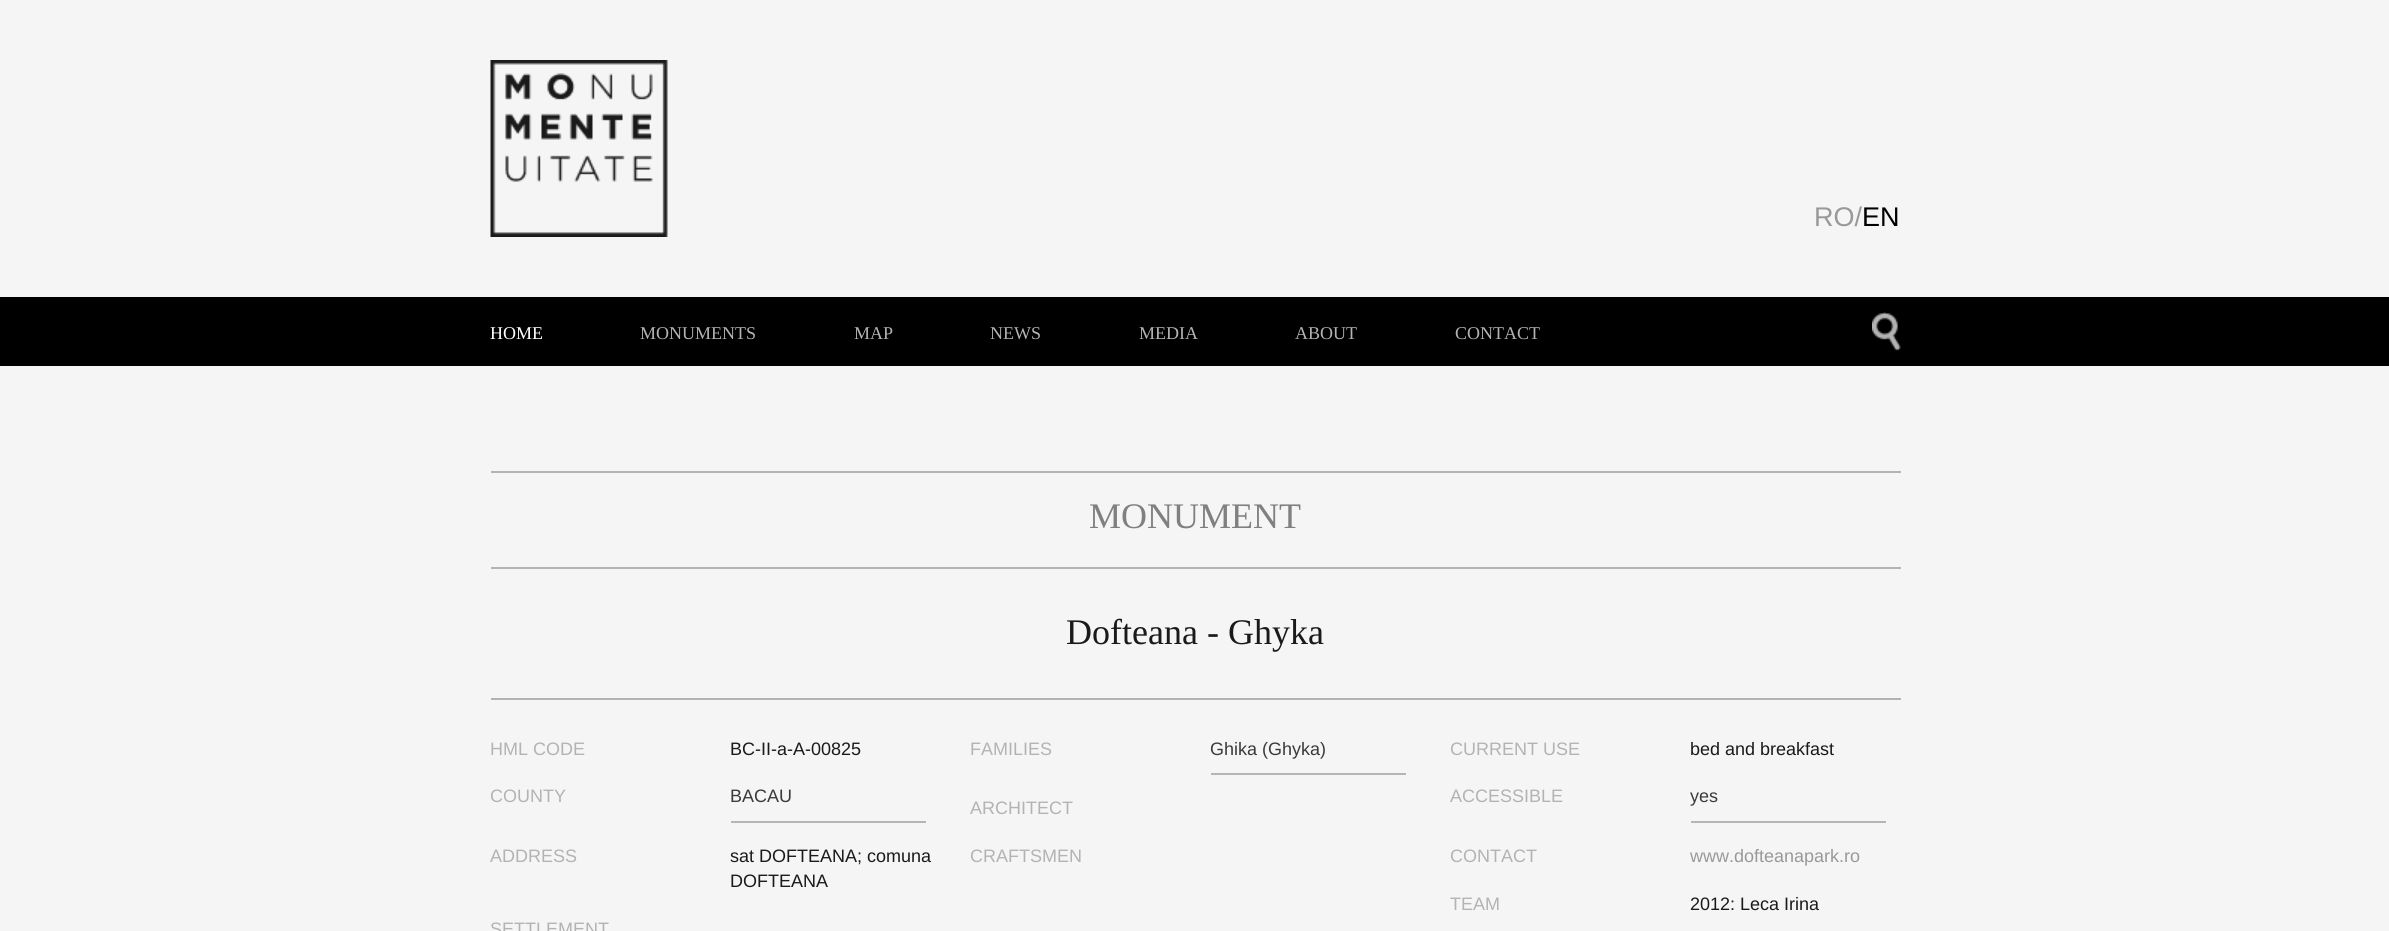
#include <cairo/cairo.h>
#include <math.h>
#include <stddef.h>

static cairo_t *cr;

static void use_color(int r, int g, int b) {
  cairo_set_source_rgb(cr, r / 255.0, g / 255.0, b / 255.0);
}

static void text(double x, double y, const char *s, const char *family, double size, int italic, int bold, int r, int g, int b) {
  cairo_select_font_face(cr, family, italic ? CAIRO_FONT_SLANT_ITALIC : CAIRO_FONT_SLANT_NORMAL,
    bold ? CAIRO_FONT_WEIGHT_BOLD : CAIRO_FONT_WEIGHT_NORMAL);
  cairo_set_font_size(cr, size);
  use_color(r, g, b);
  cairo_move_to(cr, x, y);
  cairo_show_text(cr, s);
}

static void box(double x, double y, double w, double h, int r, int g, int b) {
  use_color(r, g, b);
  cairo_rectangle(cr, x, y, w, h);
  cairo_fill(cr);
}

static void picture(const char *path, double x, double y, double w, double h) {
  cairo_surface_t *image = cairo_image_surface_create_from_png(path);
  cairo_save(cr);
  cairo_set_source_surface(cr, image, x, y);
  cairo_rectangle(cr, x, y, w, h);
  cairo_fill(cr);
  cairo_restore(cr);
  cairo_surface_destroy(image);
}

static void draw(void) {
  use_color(245, 245, 245);
  cairo_paint(cr);
  picture("img_01.png", 490, 60, 178, 177);
  box(0, 297, 2389, 69, 0, 0, 0);
  picture("img_02.png", 1872, 312, 29, 39);
  box(491, 471, 1410, 2, 179, 179, 179);
  box(491, 567, 1410, 2, 179, 179, 179);
  box(491, 698, 1410, 2, 179, 179, 179);
  box(731, 821, 195, 2, 181, 181, 181);
  box(1211, 773, 195, 2, 181, 181, 181);
  box(1691, 821, 195, 2, 181, 181, 181);
  text(1814, 226, "RO/", "Liberation Sans", 27, 0, 0, 153, 153, 153);
  text(1862, 226, "EN", "Liberation Sans", 27, 0, 0, 0, 0, 0);
  text(490, 339, "HOME", "Liberation Serif", 18, 0, 0, 255, 255, 255);
  text(640, 339, "MONUMENTS", "Liberation Serif", 18, 0, 0, 179, 179, 179);
  text(854, 339, "MAP", "Liberation Serif", 18, 0, 0, 179, 179, 179);
  text(990, 339, "NEWS", "Liberation Serif", 18, 0, 0, 179, 179, 179);
  text(1139, 339, "MEDIA", "Liberation Serif", 18, 0, 0, 179, 179, 179);
  text(1295, 339, "ABOUT", "Liberation Serif", 18, 0, 0, 179, 179, 179);
  text(1455, 339, "CONTACT", "Liberation Serif", 18, 0, 0, 179, 179, 179);
  text(1089, 528, "MONUMENT", "Liberation Serif", 36, 0, 0, 128, 128, 128);
  text(1066, 644, "Dofteana - Ghyka", "Liberation Serif", 36, 0, 0, 26, 26, 26);
  text(490, 755, "HML CODE", "Liberation Sans", 18, 0, 0, 179, 179, 179);
  text(730, 755, "BC-II-a-A-00825", "Liberation Sans", 18, 0, 0, 26, 26, 26);
  text(490, 802, "COUNTY", "Liberation Sans", 18, 0, 0, 179, 179, 179);
  text(730, 802, "BACAU", "Liberation Sans", 18, 0, 0, 58, 58, 58);
  text(490, 862, "ADDRESS", "Liberation Sans", 18, 0, 0, 179, 179, 179);
  text(730, 862, "sat DOFTEANA; comuna", "Liberation Sans", 18, 0, 0, 26, 26, 26);
  text(730, 887, "DOFTEANA", "Liberation Sans", 18, 0, 0, 26, 26, 26);
  text(490, 935, "SETTLEMENT", "Liberation Sans", 18, 0, 0, 179, 179, 179);
  text(970, 755, "FAMILIES", "Liberation Sans", 18, 0, 0, 179, 179, 179);
  text(1210, 755, "Ghika (Ghyka)", "Liberation Sans", 18, 0, 0, 58, 58, 58);
  text(970, 814, "ARCHITECT", "Liberation Sans", 18, 0, 0, 179, 179, 179);
  text(970, 862, "CRAFTSMEN", "Liberation Sans", 18, 0, 0, 179, 179, 179);
  text(1450, 755, "CURRENT USE", "Liberation Sans", 18, 0, 0, 179, 179, 179);
  text(1690, 755, "bed and breakfast", "Liberation Sans", 18, 0, 0, 26, 26, 26);
  text(1450, 802, "ACCESSIBLE", "Liberation Sans", 18, 0, 0, 179, 179, 179);
  text(1690, 802, "yes", "Liberation Sans", 18, 0, 0, 58, 58, 58);
  text(1450, 862, "CONTACT", "Liberation Sans", 18, 0, 0, 179, 179, 179);
  text(1690, 862, "www.dofteanapark.ro", "Liberation Sans", 18, 0, 0, 153, 153, 153);
  text(1450, 910, "TEAM", "Liberation Sans", 18, 0, 0, 179, 179, 179);
  text(1690, 910, "2012: Leca Irina", "Liberation Sans", 18, 0, 0, 26, 26, 26);
}

int main(void) {
  cairo_surface_t *surface = cairo_image_surface_create(CAIRO_FORMAT_RGB24, 2389, 931);
  cr = cairo_create(surface);
  cairo_font_options_t *options = cairo_font_options_create();
  cairo_font_options_set_hint_metrics(options, CAIRO_HINT_METRICS_OFF);
  cairo_font_options_set_hint_style(options, CAIRO_HINT_STYLE_NONE);
  cairo_set_font_options(cr, options);
  cairo_set_miter_limit(cr, 4);
  draw();
  cairo_surface_write_to_png(surface, "out.png");
  cairo_font_options_destroy(options);
  cairo_destroy(cr);
  cairo_surface_destroy(surface);
  return 0;
}
